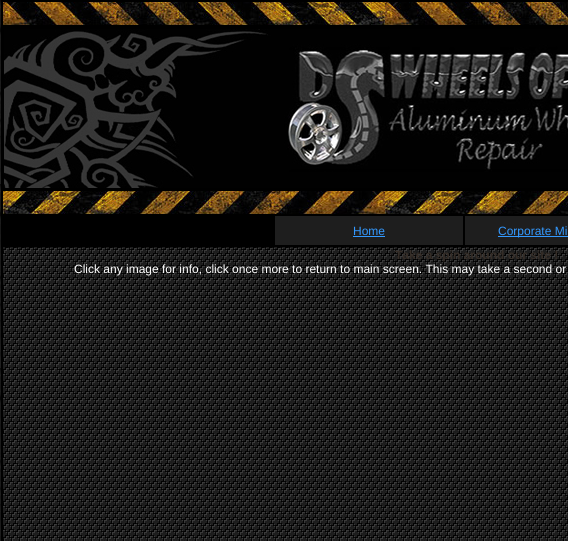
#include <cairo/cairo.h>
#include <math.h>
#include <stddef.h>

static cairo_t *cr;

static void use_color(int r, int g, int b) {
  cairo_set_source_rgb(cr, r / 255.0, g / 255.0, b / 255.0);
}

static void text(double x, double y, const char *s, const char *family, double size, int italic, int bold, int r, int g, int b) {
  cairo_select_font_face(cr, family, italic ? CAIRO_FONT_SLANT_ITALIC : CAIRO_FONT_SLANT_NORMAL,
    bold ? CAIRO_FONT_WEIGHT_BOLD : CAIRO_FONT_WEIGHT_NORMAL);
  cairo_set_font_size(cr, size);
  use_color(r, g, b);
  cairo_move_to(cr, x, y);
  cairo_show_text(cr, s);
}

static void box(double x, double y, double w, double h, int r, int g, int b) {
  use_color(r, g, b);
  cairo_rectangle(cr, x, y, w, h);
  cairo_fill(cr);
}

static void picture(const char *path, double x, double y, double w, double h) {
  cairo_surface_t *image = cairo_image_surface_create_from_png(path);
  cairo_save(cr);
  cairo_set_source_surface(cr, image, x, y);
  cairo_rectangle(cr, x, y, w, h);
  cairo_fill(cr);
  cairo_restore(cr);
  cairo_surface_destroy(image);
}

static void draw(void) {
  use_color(255, 255, 255);
  cairo_paint(cr);
  picture("img_01.png", 0, 0, 1, 541);
  box(1, 0, 567, 541, 0, 0, 0);
  picture("img_02.png", 3, 2, 565, 23);
  picture("img_03.png", 4, 29, 564, 159);
  picture("img_04.png", 3, 191, 565, 23);
  box(275, 216, 188, 29, 30, 30, 30);
  box(353, 236, 32, 1, 51, 153, 255);
  box(465, 216, 103, 29, 30, 30, 30);
  box(498, 236, 70, 1, 51, 153, 255);
  picture("img_05.png", 3, 247, 565, 294);
  text(353, 235, "Home", "Liberation Sans", 12, 0, 0, 51, 153, 255);
  text(498, 235, "Corporate Mi", "Liberation Sans", 12, 0, 0, 51, 153, 255);
  text(395, 259, "Take a spin around our site !", "Liberation Sans", 12, 0, 1, 53, 45, 39);
  text(74, 273, "Click any image for info, click once more to return to main screen. This may take a second or", "Liberation Sans", 12, 0, 0, 255, 255, 255);
}

int main(void) {
  cairo_surface_t *surface = cairo_image_surface_create(CAIRO_FORMAT_RGB24, 568, 541);
  cr = cairo_create(surface);
  cairo_font_options_t *options = cairo_font_options_create();
  cairo_font_options_set_hint_metrics(options, CAIRO_HINT_METRICS_OFF);
  cairo_font_options_set_hint_style(options, CAIRO_HINT_STYLE_NONE);
  cairo_set_font_options(cr, options);
  cairo_set_miter_limit(cr, 4);
  draw();
  cairo_surface_write_to_png(surface, "out.png");
  cairo_font_options_destroy(options);
  cairo_destroy(cr);
  cairo_surface_destroy(surface);
  return 0;
}
